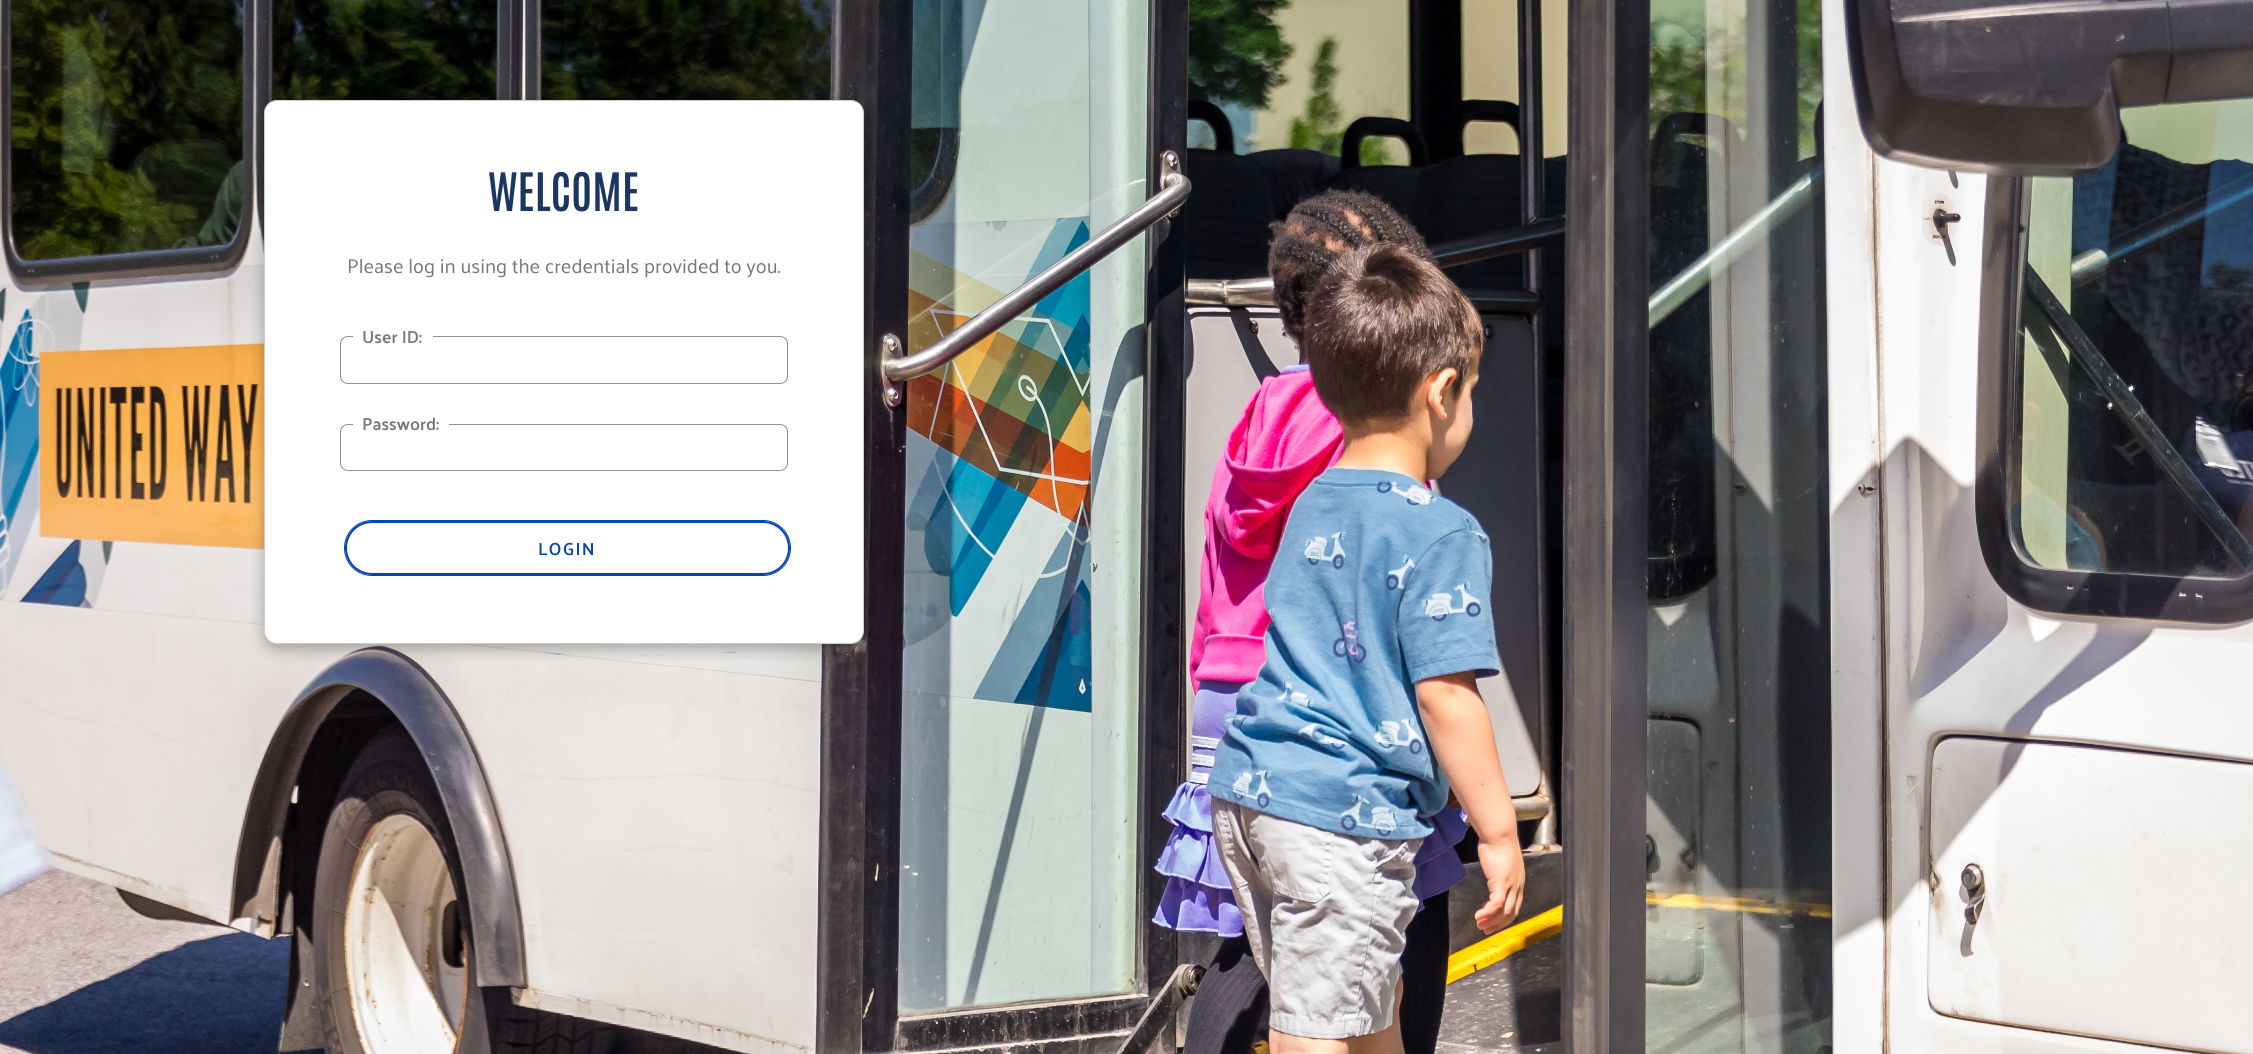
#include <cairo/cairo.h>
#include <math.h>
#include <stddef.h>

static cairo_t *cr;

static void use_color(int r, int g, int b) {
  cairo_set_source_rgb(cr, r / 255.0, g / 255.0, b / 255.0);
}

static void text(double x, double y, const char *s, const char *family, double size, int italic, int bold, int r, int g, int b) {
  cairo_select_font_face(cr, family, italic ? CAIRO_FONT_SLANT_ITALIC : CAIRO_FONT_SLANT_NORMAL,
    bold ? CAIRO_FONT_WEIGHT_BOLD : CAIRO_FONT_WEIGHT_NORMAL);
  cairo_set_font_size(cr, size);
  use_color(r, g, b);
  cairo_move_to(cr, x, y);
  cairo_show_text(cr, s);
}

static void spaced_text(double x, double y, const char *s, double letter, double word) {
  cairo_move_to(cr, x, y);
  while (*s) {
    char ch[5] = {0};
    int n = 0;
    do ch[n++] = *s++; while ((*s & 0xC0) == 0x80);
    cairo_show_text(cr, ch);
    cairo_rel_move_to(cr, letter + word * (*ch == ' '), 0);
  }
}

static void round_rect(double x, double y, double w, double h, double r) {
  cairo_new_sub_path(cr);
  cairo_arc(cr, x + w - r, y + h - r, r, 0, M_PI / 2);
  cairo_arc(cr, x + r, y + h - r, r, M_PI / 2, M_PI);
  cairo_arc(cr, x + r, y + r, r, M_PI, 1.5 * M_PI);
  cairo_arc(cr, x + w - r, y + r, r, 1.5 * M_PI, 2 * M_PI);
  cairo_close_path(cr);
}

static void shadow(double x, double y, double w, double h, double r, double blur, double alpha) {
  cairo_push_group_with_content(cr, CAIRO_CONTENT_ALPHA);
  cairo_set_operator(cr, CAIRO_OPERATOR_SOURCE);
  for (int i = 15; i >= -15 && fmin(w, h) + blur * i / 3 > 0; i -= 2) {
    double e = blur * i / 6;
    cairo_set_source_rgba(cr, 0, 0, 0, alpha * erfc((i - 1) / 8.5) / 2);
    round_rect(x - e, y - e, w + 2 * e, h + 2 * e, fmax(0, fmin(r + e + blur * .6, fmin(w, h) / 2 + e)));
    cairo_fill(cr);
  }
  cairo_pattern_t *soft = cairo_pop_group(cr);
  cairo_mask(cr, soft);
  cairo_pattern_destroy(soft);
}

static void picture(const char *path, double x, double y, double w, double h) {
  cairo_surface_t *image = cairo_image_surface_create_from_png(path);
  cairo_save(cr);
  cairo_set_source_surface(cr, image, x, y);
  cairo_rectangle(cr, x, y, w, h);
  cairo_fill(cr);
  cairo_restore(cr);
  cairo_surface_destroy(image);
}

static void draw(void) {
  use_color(255, 255, 255);
  cairo_paint(cr);
  picture("img_01.png", 0, 0, 2253, 1054);
  use_color(0, 0, 0);
  shadow(264, 105, 600, 544, 13, 7.5, 0.3);
  use_color(255, 255, 255);
  round_rect(264.5, 100.5, 599, 543, 12.5);
  cairo_fill_preserve(cr);
  use_color(204, 204, 204);
  cairo_set_line_width(cr, 1);
  cairo_stroke(cr);
  round_rect(340.5, 336.5, 447, 47, 7.5);
  use_color(145, 145, 145);
  cairo_stroke(cr);
  use_color(255, 255, 255);
  round_rect(353, 321, 80, 30, 6);
  cairo_fill(cr);
  round_rect(340.5, 424.5, 447, 46, 7.5);
  use_color(145, 145, 145);
  cairo_stroke(cr);
  use_color(255, 255, 255);
  round_rect(353, 409, 96, 30, 6);
  cairo_fill(cr);
  round_rect(346, 522, 443, 52, 26);
  use_color(0, 68, 181);
  cairo_set_line_width(cr, 2);
  cairo_stroke(cr);
  round_rect(344.5, 520.5, 446, 55, 27.5);
  cairo_set_line_width(cr, 1);
  cairo_stroke(cr);
  text(488, 211, "WELCOME", "Antonio SemiBold", 45, 0, 0, 28, 54, 100);
  text(347, 273, "Please log in using the credentials provided to you.", "Palanquin", 20, 0, 0, 119, 119, 119);
  text(362, 343, "User ID:", "Palanquin SemiBold", 17.5, 0, 0, 119, 119, 119);
  text(362, 430, "Password:", "Palanquin SemiBold", 17.5, 0, 0, 119, 119, 119);
  use_color(0, 68, 181);
  spaced_text(538, 555, "LOGIN", 1.25, 0);
}

int main(void) {
  cairo_surface_t *surface = cairo_image_surface_create(CAIRO_FORMAT_RGB24, 2253, 1054);
  cr = cairo_create(surface);
  cairo_font_options_t *options = cairo_font_options_create();
  cairo_font_options_set_hint_metrics(options, CAIRO_HINT_METRICS_OFF);
  cairo_font_options_set_hint_style(options, CAIRO_HINT_STYLE_NONE);
  cairo_set_font_options(cr, options);
  cairo_set_miter_limit(cr, 4);
  draw();
  cairo_surface_write_to_png(surface, "out.png");
  cairo_font_options_destroy(options);
  cairo_destroy(cr);
  cairo_surface_destroy(surface);
  return 0;
}
